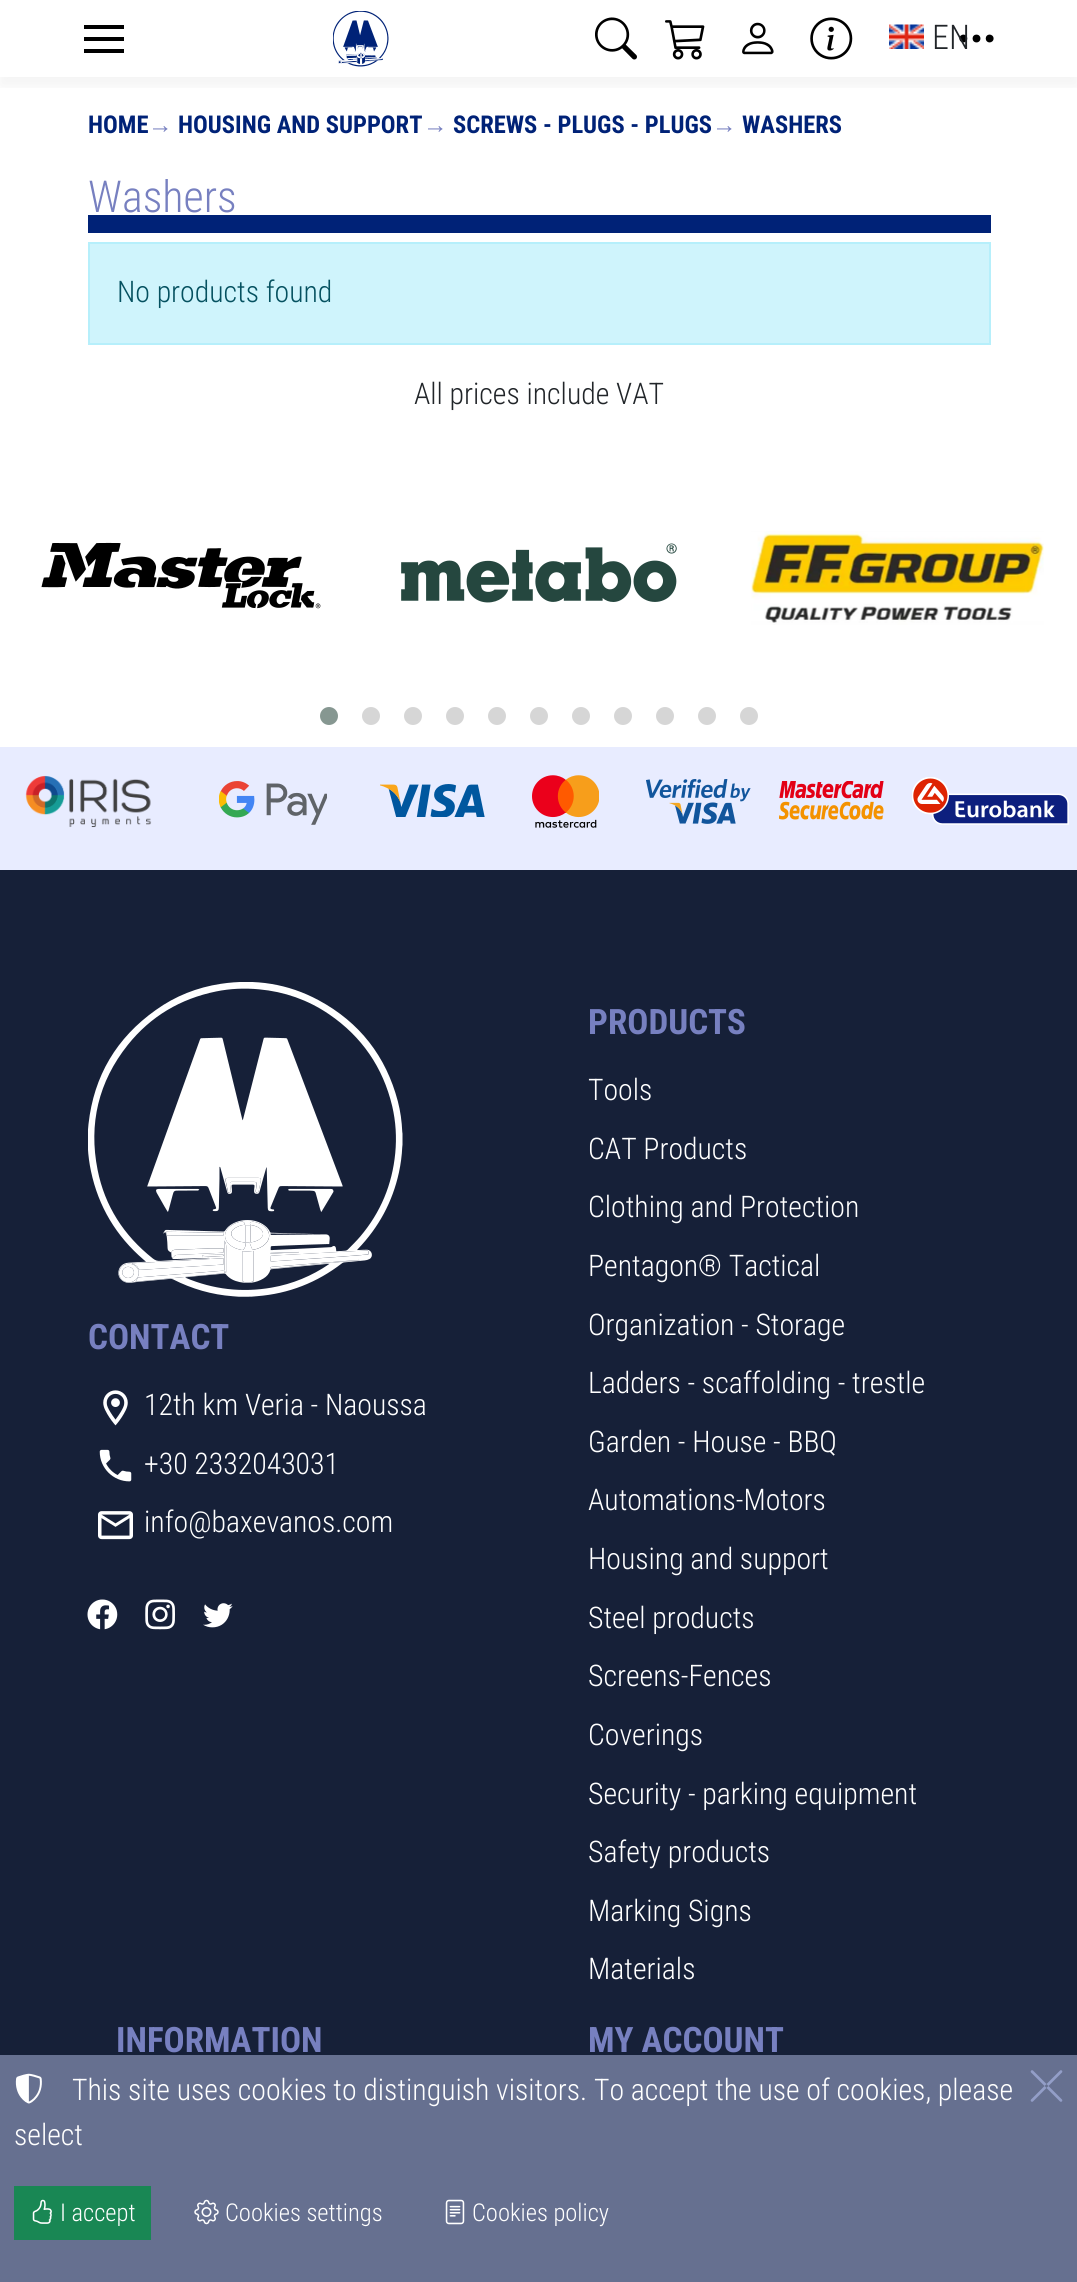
#include <cairo/cairo.h>
#include <math.h>
#include <stddef.h>

static cairo_t *cr;

static void use_color(int r, int g, int b) {
  cairo_set_source_rgb(cr, r / 255.0, g / 255.0, b / 255.0);
}

static void text(double x, double y, const char *s, const char *family, double size, int italic, int bold, int r, int g, int b) {
  cairo_select_font_face(cr, family, italic ? CAIRO_FONT_SLANT_ITALIC : CAIRO_FONT_SLANT_NORMAL,
    bold ? CAIRO_FONT_WEIGHT_BOLD : CAIRO_FONT_WEIGHT_NORMAL);
  cairo_set_font_size(cr, size);
  use_color(r, g, b);
  cairo_move_to(cr, x, y);
  cairo_show_text(cr, s);
}

static void box(double x, double y, double w, double h, int r, int g, int b) {
  use_color(r, g, b);
  cairo_rectangle(cr, x, y, w, h);
  cairo_fill(cr);
}

static void round_rect(double x, double y, double w, double h, double r) {
  cairo_new_sub_path(cr);
  cairo_arc(cr, x + w - r, y + h - r, r, 0, M_PI / 2);
  cairo_arc(cr, x + r, y + h - r, r, M_PI / 2, M_PI);
  cairo_arc(cr, x + r, y + r, r, M_PI, 1.5 * M_PI);
  cairo_arc(cr, x + w - r, y + r, r, 1.5 * M_PI, 2 * M_PI);
  cairo_close_path(cr);
}

static void shadow(double x, double y, double w, double h, double r, double blur, double alpha) {
  cairo_push_group_with_content(cr, CAIRO_CONTENT_ALPHA);
  cairo_set_operator(cr, CAIRO_OPERATOR_SOURCE);
  for (int i = 15; i >= -15 && fmin(w, h) + blur * i / 3 > 0; i -= 2) {
    double e = blur * i / 6;
    cairo_set_source_rgba(cr, 0, 0, 0, alpha * erfc((i - 1) / 8.5) / 2);
    round_rect(x - e, y - e, w + 2 * e, h + 2 * e, fmax(0, fmin(r + e + blur * .6, fmin(w, h) / 2 + e)));
    cairo_fill(cr);
  }
  cairo_pattern_t *soft = cairo_pop_group(cr);
  cairo_mask(cr, soft);
  cairo_pattern_destroy(soft);
}

static void picture(const char *path, double x, double y, double w, double h) {
  cairo_surface_t *image = cairo_image_surface_create_from_png(path);
  cairo_save(cr);
  cairo_set_source_surface(cr, image, x, y);
  cairo_rectangle(cr, x, y, w, h);
  cairo_fill(cr);
  cairo_restore(cr);
  cairo_surface_destroy(image);
}

static void draw(void) {
  use_color(255, 255, 255);
  cairo_paint(cr);
  cairo_save(cr);
  cairo_rectangle(cr, 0, 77, 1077, 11);
  cairo_clip(cr);
  use_color(0, 0, 0);
  shadow(0, 9, 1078, 77, 0, 9, 0.05);
  cairo_restore(cr);
  box(84, 37, 40, 4, 0, 0, 0);
  box(84, 25, 40, 4, 0, 0, 0);
  box(84, 49, 40, 4, 0, 0, 0);
  picture("img_01.png", 333, 11, 56, 56);
  picture("img_02.png", 595, 17, 42, 43);
  picture("img_03.png", 665, 20, 40, 40);
  picture("img_04.png", 742, 22, 32, 33);
  picture("img_05.png", 810, 17, 43, 43);
  picture("img_06.png", 889, 24, 35, 25);
  picture("img_07.png", 959, 34, 35, 9);
  box(88, 215, 903, 18, 0, 34, 119);
  use_color(207, 244, 252);
  cairo_rectangle(cr, 89, 243, 901, 101);
  cairo_fill_preserve(cr);
  use_color(182, 239, 251);
  cairo_stroke(cr);
  picture("img_08.png", 41, 542, 280, 67);
  picture("img_09.png", 401, 543, 276, 60);
  picture("img_10.png", 751, 531, 293, 94);
  use_color(134, 151, 145);
  cairo_arc(cr, 329, 716, 9, 0, 2 * M_PI);
  cairo_fill(cr);
  use_color(214, 214, 214);
  cairo_arc(cr, 371, 716, 9, 0, 2 * M_PI);
  cairo_fill(cr);
  cairo_arc(cr, 413, 716, 9, 0, 2 * M_PI);
  cairo_fill(cr);
  cairo_arc(cr, 455, 716, 9, 0, 2 * M_PI);
  cairo_fill(cr);
  cairo_arc(cr, 497, 716, 9, 0, 2 * M_PI);
  cairo_fill(cr);
  cairo_arc(cr, 539, 716, 9, 0, 2 * M_PI);
  cairo_fill(cr);
  cairo_arc(cr, 581, 716, 9, 0, 2 * M_PI);
  cairo_fill(cr);
  cairo_arc(cr, 623, 716, 9, 0, 2 * M_PI);
  cairo_fill(cr);
  cairo_arc(cr, 665, 716, 9, 0, 2 * M_PI);
  cairo_fill(cr);
  cairo_arc(cr, 707, 716, 9, 0, 2 * M_PI);
  cairo_fill(cr);
  cairo_arc(cr, 749, 716, 9, 0, 2 * M_PI);
  cairo_fill(cr);
  box(0, 747, 1077, 123, 232, 236, 255);
  picture("img_11.png", 25, 775, 127, 53);
  picture("img_12.png", 219, 781, 108, 44);
  picture("img_13.png", 380, 784, 105, 33);
  picture("img_14.png", 532, 775, 67, 53);
  picture("img_15.png", 646, 779, 105, 45);
  picture("img_16.png", 779, 781, 105, 39);
  picture("img_17.png", 912, 777, 157, 48);
  box(0, 870, 1077, 1185, 22, 32, 56);
  picture("img_18.png", 88, 982, 315, 315);
  picture("img_19.png", 103, 1390, 25, 36);
  picture("img_20.png", 99, 1449, 33, 33);
  picture("img_21.png", 98, 1511, 35, 29);
  picture("img_22.png", 87, 1599, 31, 31);
  picture("img_23.png", 145, 1599, 30, 31);
  picture("img_24.png", 203, 1603, 30, 25);
  box(0, 2055, 1077, 227, 102, 112, 144);
  picture("img_25.png", 15, 2073, 27, 31);
  picture("img_26.png", 1030, 2070, 33, 32);
  box(14, 2186, 137, 54, 25, 135, 84);
  picture("img_27.png", 32, 2199, 20, 25);
  picture("img_28.png", 194, 2199, 25, 26);
  picture("img_29.png", 445, 2199, 20, 26);
  text(932, 49, "EN", "Roboto Condensed Light", 34, 0, 0, 33, 37, 41);
  text(88, 133, "HOME", "Roboto Condensed", 24.5, 0, 1, 0, 34, 119);
  text(148, 133, "→", "Liberation Sans", 24.5, 0, 1, 119, 128, 192);
  text(178, 133, "HOUSING AND SUPPORT", "Roboto Condensed", 24.5, 0, 1, 0, 34, 119);
  text(423, 133, "→", "Liberation Sans", 24.5, 0, 1, 119, 128, 192);
  text(453, 133, "SCREWS - PLUGS - PLUGS", "Roboto Condensed", 24.5, 0, 1, 0, 34, 119);
  text(712, 133, "→", "Liberation Sans", 24.5, 0, 1, 119, 128, 192);
  text(742, 133, "WASHERS", "Roboto Condensed", 24.5, 0, 1, 0, 34, 119);
  text(88, 212, "Washers", "Roboto Condensed Light", 44, 0, 0, 119, 128, 192);
  text(117, 302, "No products found", "Roboto Condensed Light", 29.75, 0, 0, 5, 81, 96);
  text(414, 404, "All prices include VAT", "Roboto Condensed Light", 29.75, 0, 0, 33, 37, 41);
  text(88, 1349, "CONTACT", "Roboto Condensed", 35, 0, 1, 119, 128, 192);
  text(144, 1415, "12th km Veria - Naoussa", "Roboto Condensed Light", 29.75, 0, 0, 255, 255, 255);
  text(144, 1474, "+30 2332043031", "Roboto Condensed Light", 29.75, 0, 0, 255, 255, 255);
  text(144, 1532, "info@baxevanos.com", "Roboto Condensed Light", 29.75, 0, 0, 255, 255, 255);
  text(588, 1034, "PRODUCTS", "Roboto Condensed", 35, 0, 1, 119, 128, 192);
  text(588, 1100, "Tools", "Roboto Condensed Light", 29.75, 0, 0, 255, 255, 255);
  text(588, 1159, "CAT Products", "Roboto Condensed Light", 29.75, 0, 0, 255, 255, 255);
  text(588, 1217, "Clothing and Protection", "Roboto Condensed Light", 29.75, 0, 0, 255, 255, 255);
  text(588, 1276, "Pentagon® Tactical", "Roboto Condensed Light", 29.75, 0, 0, 255, 255, 255);
  text(588, 1335, "Organization - Storage", "Roboto Condensed Light", 29.75, 0, 0, 255, 255, 255);
  text(588, 1393, "Ladders - scaffolding - trestle", "Roboto Condensed Light", 29.75, 0, 0, 255, 255, 255);
  text(588, 1452, "Garden - House - BBQ", "Roboto Condensed Light", 29.75, 0, 0, 255, 255, 255);
  text(588, 1510, "Automations-Motors", "Roboto Condensed Light", 29.75, 0, 0, 255, 255, 255);
  text(588, 1569, "Housing and support", "Roboto Condensed Light", 29.75, 0, 0, 255, 255, 255);
  text(588, 1628, "Steel products", "Roboto Condensed Light", 29.75, 0, 0, 255, 255, 255);
  text(588, 1686, "Screens-Fences", "Roboto Condensed Light", 29.75, 0, 0, 255, 255, 255);
  text(588, 1745, "Coverings", "Roboto Condensed Light", 29.75, 0, 0, 255, 255, 255);
  text(588, 1804, "Security - parking equipment", "Roboto Condensed Light", 29.75, 0, 0, 255, 255, 255);
  text(588, 1862, "Safety products", "Roboto Condensed Light", 29.75, 0, 0, 255, 255, 255);
  text(588, 1921, "Marking Signs", "Roboto Condensed Light", 29.75, 0, 0, 255, 255, 255);
  text(588, 1979, "Materials", "Roboto Condensed Light", 29.75, 0, 0, 255, 255, 255);
  text(116, 2052, "INFORMATION", "Roboto Condensed", 35, 0, 1, 119, 128, 192);
  text(588, 2052, "MY ACCOUNT", "Roboto Condensed", 35, 0, 1, 119, 128, 192);
  text(72, 2100, "This site uses cookies to distinguish visitors. To accept the use of cookies, please", "Roboto Condensed Light", 29.75, 0, 0, 255, 255, 255);
  text(14, 2145, "select", "Roboto Condensed Light", 29.75, 0, 0, 255, 255, 255);
  text(60, 2221, "I accept", "Roboto Condensed Light", 24.5, 0, 0, 255, 255, 255);
  text(225, 2221, "Cookies settings", "Roboto Condensed Light", 24.5, 0, 0, 255, 255, 255);
  text(472, 2221, "Cookies policy", "Roboto Condensed Light", 24.5, 0, 0, 255, 255, 255);
}

int main(void) {
  cairo_surface_t *surface = cairo_image_surface_create(CAIRO_FORMAT_RGB24, 1077, 2282);
  cr = cairo_create(surface);
  cairo_font_options_t *options = cairo_font_options_create();
  cairo_font_options_set_hint_metrics(options, CAIRO_HINT_METRICS_OFF);
  cairo_font_options_set_hint_style(options, CAIRO_HINT_STYLE_NONE);
  cairo_set_font_options(cr, options);
  cairo_set_miter_limit(cr, 4);
  draw();
  cairo_surface_write_to_png(surface, "out.png");
  cairo_font_options_destroy(options);
  cairo_destroy(cr);
  cairo_surface_destroy(surface);
  return 0;
}
